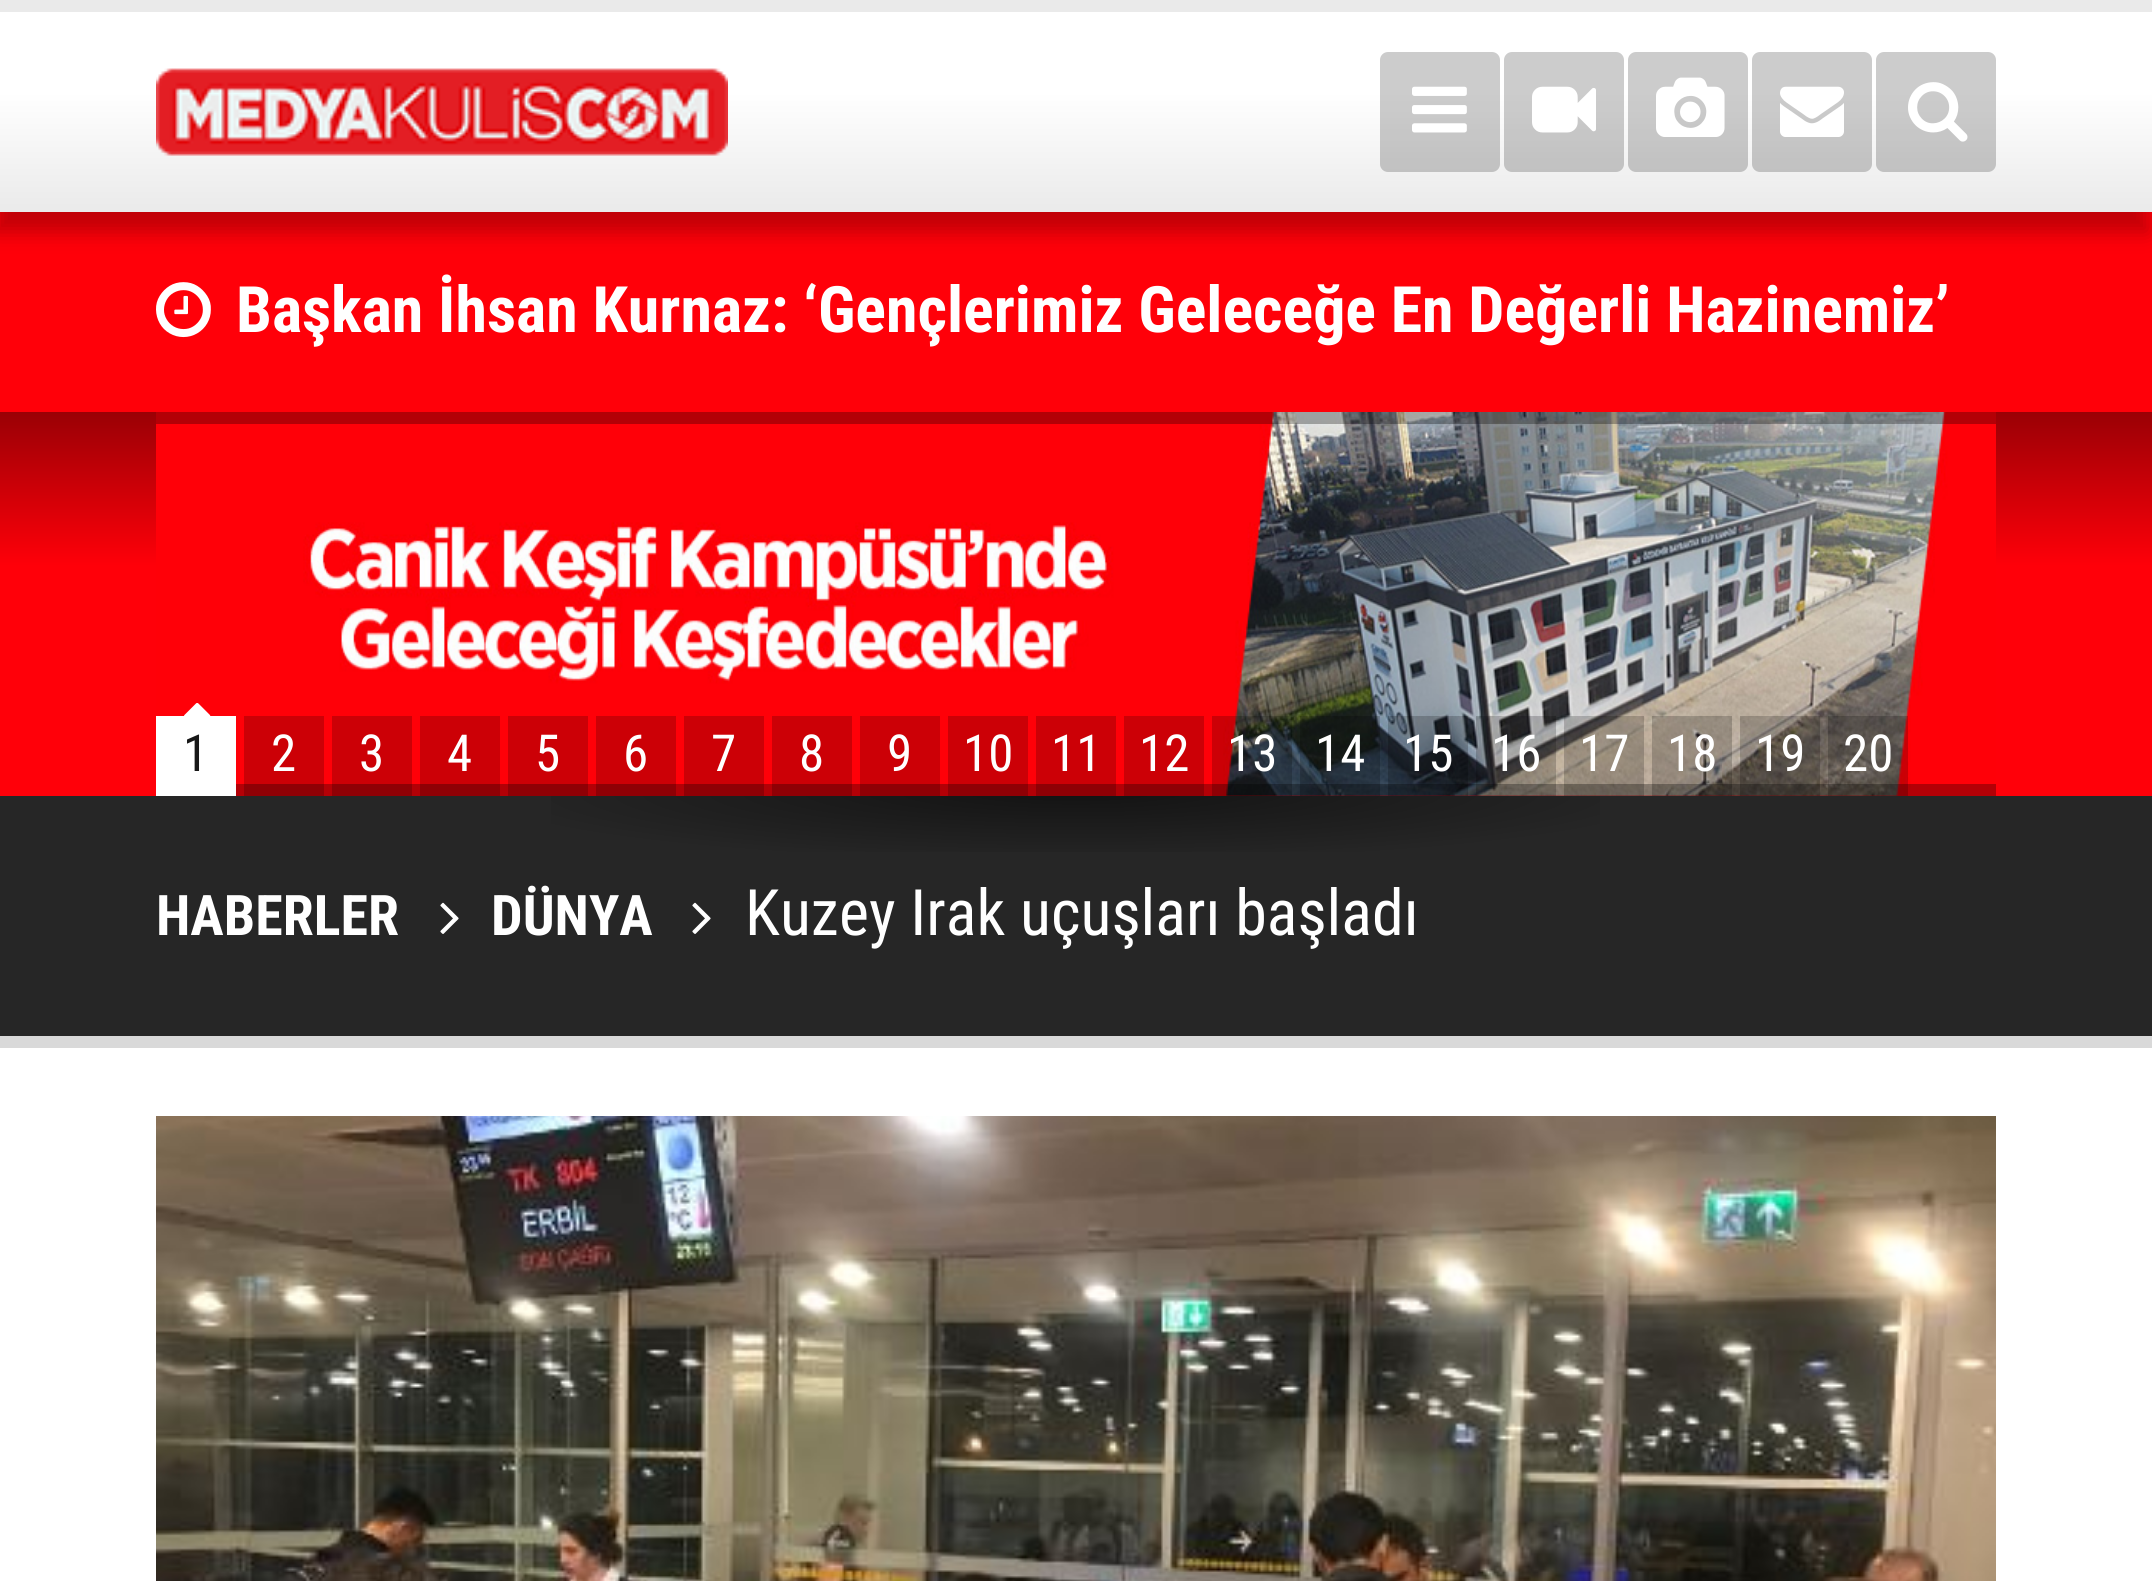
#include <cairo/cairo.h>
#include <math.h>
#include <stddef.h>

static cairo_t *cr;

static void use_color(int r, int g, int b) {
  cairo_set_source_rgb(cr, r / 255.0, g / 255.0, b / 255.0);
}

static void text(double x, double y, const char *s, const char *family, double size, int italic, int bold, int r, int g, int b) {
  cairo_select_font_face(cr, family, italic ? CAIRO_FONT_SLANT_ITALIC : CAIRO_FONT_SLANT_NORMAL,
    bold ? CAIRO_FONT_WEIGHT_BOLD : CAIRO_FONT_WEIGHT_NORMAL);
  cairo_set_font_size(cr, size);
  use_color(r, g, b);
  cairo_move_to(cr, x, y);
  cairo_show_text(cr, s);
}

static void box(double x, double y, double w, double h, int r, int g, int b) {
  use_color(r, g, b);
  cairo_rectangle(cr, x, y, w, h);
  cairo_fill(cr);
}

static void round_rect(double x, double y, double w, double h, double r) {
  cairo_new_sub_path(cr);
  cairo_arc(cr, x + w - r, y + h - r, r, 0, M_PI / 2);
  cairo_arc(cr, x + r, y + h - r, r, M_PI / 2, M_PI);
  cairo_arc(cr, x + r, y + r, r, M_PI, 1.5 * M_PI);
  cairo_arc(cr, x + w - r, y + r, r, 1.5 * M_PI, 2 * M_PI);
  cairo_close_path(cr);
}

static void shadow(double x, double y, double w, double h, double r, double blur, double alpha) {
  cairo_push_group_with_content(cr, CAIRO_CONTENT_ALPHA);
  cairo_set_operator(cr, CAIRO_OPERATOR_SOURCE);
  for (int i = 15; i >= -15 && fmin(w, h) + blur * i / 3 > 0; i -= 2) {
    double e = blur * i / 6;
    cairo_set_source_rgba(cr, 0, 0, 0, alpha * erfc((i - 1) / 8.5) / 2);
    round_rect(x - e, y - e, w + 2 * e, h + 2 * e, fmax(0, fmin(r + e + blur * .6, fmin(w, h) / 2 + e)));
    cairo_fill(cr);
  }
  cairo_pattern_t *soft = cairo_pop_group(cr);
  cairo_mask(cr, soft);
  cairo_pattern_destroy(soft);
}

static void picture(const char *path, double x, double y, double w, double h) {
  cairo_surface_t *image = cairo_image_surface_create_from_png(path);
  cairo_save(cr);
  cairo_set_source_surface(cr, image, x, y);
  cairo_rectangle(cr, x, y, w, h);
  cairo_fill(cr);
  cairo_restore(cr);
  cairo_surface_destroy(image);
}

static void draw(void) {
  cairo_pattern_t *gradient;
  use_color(255, 255, 255);
  cairo_paint(cr);
  box(0, 212, 2152, 200, 255, 0, 9);
  use_color(0, 0, 0);
  shadow(-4, 20, 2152, 212, 0, 10, 0.25);
  gradient = cairo_pattern_create_linear(1076, 12, 1076, 212);
  cairo_pattern_add_color_stop_rgba(gradient, 0.4, 1, 1, 1, 1);
  cairo_pattern_add_color_stop_rgba(gradient, 1, 0.918, 0.918, 0.918, 1);
  cairo_set_source(cr, gradient);
  cairo_pattern_destroy(gradient);
  cairo_rectangle(cr, 0, 12, 2152, 200);
  cairo_fill(cr);
  box(0, 0, 2152, 12, 234, 234, 234);
  picture("img_01.png", 156, 68, 572, 88);
  cairo_set_source_rgba(cr, 0, 0, 0, 0.2);
  round_rect(1380, 52, 120, 120, 8);
  cairo_fill(cr);
  picture("img_02.png", 1412, 86, 55, 47);
  round_rect(1504, 52, 120, 120, 8);
  cairo_fill(cr);
  picture("img_03.png", 1532, 86, 64, 47);
  round_rect(1628, 52, 120, 120, 8);
  cairo_fill(cr);
  picture("img_04.png", 1656, 77, 69, 60);
  round_rect(1752, 52, 120, 120, 8);
  cairo_fill(cr);
  picture("img_05.png", 1780, 86, 64, 51);
  round_rect(1876, 52, 120, 120, 8);
  cairo_fill(cr);
  picture("img_06.png", 1908, 82, 60, 60);
  picture("img_07.png", 156, 282, 55, 56);
  gradient = cairo_pattern_create_linear(1076, 412, 1076, 796);
  cairo_pattern_add_color_stop_rgba(gradient, 0, 0.604, 0, 0.02, 1);
  cairo_pattern_add_color_stop_rgba(gradient, 0.4, 1, 0, 0.035, 1);
  cairo_pattern_add_color_stop_rgba(gradient, 1, 1, 0, 0.035, 1);
  cairo_set_source(cr, gradient);
  cairo_pattern_destroy(gradient);
  cairo_rectangle(cr, 0, 412, 2152, 384);
  cairo_fill(cr);
  picture("img_08.png", 156, 412, 1840, 384);
  cairo_set_source_rgba(cr, 0, 0, 0, 0.3);
  cairo_rectangle(cr, 156, 412, 1840, 12);
  cairo_fill(cr);
  cairo_rectangle(cr, 236, 784, 1760, 12);
  cairo_fill(cr);
  picture("img_09.png", 184, 703, 27, 13);
  box(156, 716, 80, 80, 255, 255, 255);
  cairo_set_source_rgba(cr, 0, 0, 0, 0.2);
  cairo_rectangle(cr, 244, 716, 80, 80);
  cairo_fill(cr);
  cairo_rectangle(cr, 332, 716, 80, 80);
  cairo_fill(cr);
  cairo_rectangle(cr, 420, 716, 80, 80);
  cairo_fill(cr);
  cairo_rectangle(cr, 508, 716, 80, 80);
  cairo_fill(cr);
  cairo_rectangle(cr, 596, 716, 80, 80);
  cairo_fill(cr);
  cairo_rectangle(cr, 684, 716, 80, 80);
  cairo_fill(cr);
  cairo_rectangle(cr, 772, 716, 80, 80);
  cairo_fill(cr);
  cairo_rectangle(cr, 860, 716, 80, 80);
  cairo_fill(cr);
  cairo_rectangle(cr, 948, 716, 80, 80);
  cairo_fill(cr);
  cairo_rectangle(cr, 1036, 716, 80, 80);
  cairo_fill(cr);
  cairo_rectangle(cr, 1124, 716, 80, 80);
  cairo_fill(cr);
  cairo_rectangle(cr, 1212, 716, 80, 80);
  cairo_fill(cr);
  cairo_rectangle(cr, 1300, 716, 80, 80);
  cairo_fill(cr);
  cairo_rectangle(cr, 1388, 716, 80, 80);
  cairo_fill(cr);
  cairo_rectangle(cr, 1476, 716, 80, 80);
  cairo_fill(cr);
  cairo_rectangle(cr, 1564, 716, 80, 80);
  cairo_fill(cr);
  cairo_rectangle(cr, 1652, 716, 80, 80);
  cairo_fill(cr);
  cairo_rectangle(cr, 1740, 716, 80, 80);
  cairo_fill(cr);
  cairo_rectangle(cr, 1828, 716, 80, 80);
  cairo_fill(cr);
  box(0, 796, 2152, 240, 38, 38, 38);
  gradient = cairo_pattern_create_radial(0, 0, 0, 0, 0, 1);
  cairo_pattern_set_matrix(gradient, &(cairo_matrix_t){1.0 / 1522, 0, 0, 1.0 / 175, -1.0 * 1076 / 1522, -1.0 * 792 / 175});
  cairo_pattern_add_color_stop_rgba(gradient, 0, 0, 0, 0, 0.5);
  cairo_pattern_add_color_stop_rgba(gradient, 0.4, 0, 0, 0, 0);
  cairo_set_source(cr, gradient);
  cairo_pattern_destroy(gradient);
  cairo_rectangle(cr, 551, 796, 1049, 56);
  cairo_fill(cr);
  picture("img_10.png", 440, 902, 19, 32);
  picture("img_10.png", 692, 902, 19, 32);
  box(0, 1036, 2152, 12, 217, 217, 217);
  picture("img_11.png", 156, 1116, 1840, 465);
  text(236, 332, "Başkan İhsan Kurnaz: ‘Gençlerimiz Geleceğe En Değerli Hazinemiz’", "Roboto Condensed", 64, 0, 1, 255, 255, 255);
  text(183, 771, "1", "Roboto Condensed", 51, 0, 0, 23, 23, 23);
  text(271, 771, "2", "Roboto Condensed", 51, 0, 0, 255, 255, 255);
  text(359, 771, "3", "Roboto Condensed", 51, 0, 0, 255, 255, 255);
  text(447, 771, "4", "Roboto Condensed", 51, 0, 0, 255, 255, 255);
  text(535, 771, "5", "Roboto Condensed", 51, 0, 0, 255, 255, 255);
  text(623, 771, "6", "Roboto Condensed", 51, 0, 0, 255, 255, 255);
  text(711, 771, "7", "Roboto Condensed", 51, 0, 0, 255, 255, 255);
  text(799, 771, "8", "Roboto Condensed", 51, 0, 0, 255, 255, 255);
  text(887, 771, "9", "Roboto Condensed", 51, 0, 0, 255, 255, 255);
  text(963, 771, "10", "Roboto Condensed", 51, 0, 0, 255, 255, 255);
  text(1051, 771, "11", "Roboto Condensed", 51, 0, 0, 255, 255, 255);
  text(1139, 771, "12", "Roboto Condensed", 51, 0, 0, 255, 255, 255);
  text(1227, 771, "13", "Roboto Condensed", 51, 0, 0, 255, 255, 255);
  text(1315, 771, "14", "Roboto Condensed", 51, 0, 0, 255, 255, 255);
  text(1403, 771, "15", "Roboto Condensed", 51, 0, 0, 255, 255, 255);
  text(1491, 771, "16", "Roboto Condensed", 51, 0, 0, 255, 255, 255);
  text(1579, 771, "17", "Roboto Condensed", 51, 0, 0, 255, 255, 255);
  text(1667, 771, "18", "Roboto Condensed", 51, 0, 0, 255, 255, 255);
  text(1755, 771, "19", "Roboto Condensed", 51, 0, 0, 255, 255, 255);
  text(1843, 771, "20", "Roboto Condensed", 51, 0, 0, 255, 255, 255);
  text(156, 935, "HABERLER", "Roboto Condensed", 56, 0, 1, 255, 255, 255);
  text(491, 935, "DÜNYA", "Roboto Condensed", 56, 0, 1, 255, 255, 255);
  text(745, 935, "Kuzey Irak uçuşları başladı", "Roboto Condensed", 64, 0, 0, 255, 255, 255);
}

int main(void) {
  cairo_surface_t *surface = cairo_image_surface_create(CAIRO_FORMAT_RGB24, 2152, 1581);
  cr = cairo_create(surface);
  cairo_font_options_t *options = cairo_font_options_create();
  cairo_font_options_set_hint_metrics(options, CAIRO_HINT_METRICS_OFF);
  cairo_font_options_set_hint_style(options, CAIRO_HINT_STYLE_NONE);
  cairo_set_font_options(cr, options);
  cairo_set_miter_limit(cr, 4);
  draw();
  cairo_surface_write_to_png(surface, "out.png");
  cairo_font_options_destroy(options);
  cairo_destroy(cr);
  cairo_surface_destroy(surface);
  return 0;
}
